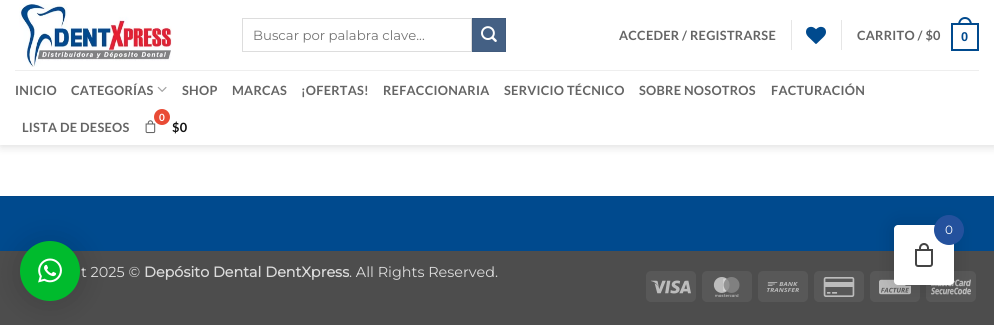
#include <cairo/cairo.h>
#include <math.h>
#include <stddef.h>

static cairo_t *cr;

static void use_color(int r, int g, int b) {
  cairo_set_source_rgb(cr, r / 255.0, g / 255.0, b / 255.0);
}

static void text(double x, double y, const char *s, const char *family, double size, int italic, int bold, int r, int g, int b) {
  cairo_select_font_face(cr, family, italic ? CAIRO_FONT_SLANT_ITALIC : CAIRO_FONT_SLANT_NORMAL,
    bold ? CAIRO_FONT_WEIGHT_BOLD : CAIRO_FONT_WEIGHT_NORMAL);
  cairo_set_font_size(cr, size);
  use_color(r, g, b);
  cairo_move_to(cr, x, y);
  cairo_show_text(cr, s);
}

static void spaced_text(double x, double y, const char *s, double letter, double word) {
  cairo_move_to(cr, x, y);
  while (*s) {
    char ch[5] = {0};
    int n = 0;
    do ch[n++] = *s++; while ((*s & 0xC0) == 0x80);
    cairo_show_text(cr, ch);
    cairo_rel_move_to(cr, letter + word * (*ch == ' '), 0);
  }
}

static void box(double x, double y, double w, double h, int r, int g, int b) {
  use_color(r, g, b);
  cairo_rectangle(cr, x, y, w, h);
  cairo_fill(cr);
}

static void round_rect(double x, double y, double w, double h, double r) {
  cairo_new_sub_path(cr);
  cairo_arc(cr, x + w - r, y + h - r, r, 0, M_PI / 2);
  cairo_arc(cr, x + r, y + h - r, r, M_PI / 2, M_PI);
  cairo_arc(cr, x + r, y + r, r, M_PI, 1.5 * M_PI);
  cairo_arc(cr, x + w - r, y + r, r, 1.5 * M_PI, 2 * M_PI);
  cairo_close_path(cr);
}

static void shadow(double x, double y, double w, double h, double r, double blur, double alpha) {
  cairo_push_group_with_content(cr, CAIRO_CONTENT_ALPHA);
  cairo_set_operator(cr, CAIRO_OPERATOR_SOURCE);
  for (int i = 15; i >= -15 && fmin(w, h) + blur * i / 3 > 0; i -= 2) {
    double e = blur * i / 6;
    cairo_set_source_rgba(cr, 0, 0, 0, alpha * erfc((i - 1) / 8.5) / 2);
    round_rect(x - e, y - e, w + 2 * e, h + 2 * e, fmax(0, fmin(r + e + blur * .6, fmin(w, h) / 2 + e)));
    cairo_fill(cr);
  }
  cairo_pattern_t *soft = cairo_pop_group(cr);
  cairo_mask(cr, soft);
  cairo_pattern_destroy(soft);
}

static void picture(const char *path, double x, double y, double w, double h) {
  cairo_surface_t *image = cairo_image_surface_create_from_png(path);
  cairo_save(cr);
  cairo_set_source_surface(cr, image, x, y);
  cairo_rectangle(cr, x, y, w, h);
  cairo_fill(cr);
  cairo_restore(cr);
  cairo_surface_destroy(image);
}

static void draw(void) {
  use_color(255, 255, 255);
  cairo_paint(cr);
  use_color(0, 0, 0);
  shadow(1, 1, 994, 145, 0, 5, 0.15);
  box(0, 0, 994, 145, 255, 255, 255);
  picture("img_01.png", 19, 4, 153, 63);
  cairo_rectangle(cr, 242.5, 18.5, 229, 33);
  use_color(221, 221, 221);
  cairo_set_line_width(cr, 1);
  cairo_stroke(cr);
  use_color(68, 96, 132);
  cairo_rectangle(cr, 472.5, 18.5, 33, 33);
  cairo_fill_preserve(cr);
  use_color(65, 91, 125);
  cairo_stroke(cr);
  picture("img_02.png", 481, 26, 16, 16);
  box(791, 20, 1, 30, 230, 230, 230);
  picture("img_03.png", 806, 26, 20, 18);
  box(841, 20, 1, 30, 230, 230, 230);
  cairo_rectangle(cr, 952, 24, 26, 26);
  use_color(0, 74, 142);
  cairo_set_line_width(cr, 2);
  cairo_stroke(cr);
  cairo_set_fill_rule(cr, CAIRO_FILL_RULE_EVEN_ODD);
  cairo_new_path(cr);
  cairo_move_to(cr, 965, 17);
  cairo_curve_to(cr, 969.5, 17, 972, 21, 972, 25);
  cairo_line_to(cr, 958, 25);
  cairo_curve_to(cr, 958, 21, 960.5, 17, 965, 17);
  cairo_close_path(cr);
  cairo_move_to(cr, 965, 19);
  cairo_curve_to(cr, 968.5, 19, 970, 22, 970, 25);
  cairo_line_to(cr, 960, 25);
  cairo_curve_to(cr, 960, 22, 961.5, 19, 965, 19);
  cairo_close_path(cr);
  cairo_fill(cr);
  box(15, 70, 964, 1, 238, 238, 238);
  picture("img_04.png", 157, 86, 10, 6);
  picture("img_05.png", 145, 120, 11, 14);
  use_color(233, 75, 53);
  cairo_arc(cr, 162, 117, 8, 0, 2 * M_PI);
  cairo_fill(cr);
  box(0, 197, 994, 54, 0, 74, 142);
  box(0, 196, 994, 1, 0, 70, 135);
  box(0, 251, 994, 74, 77, 77, 77);
  use_color(88, 88, 88);
  round_rect(646, 271, 50, 31, 5);
  cairo_fill(cr);
  picture("img_06.png", 651, 280, 40, 14);
  round_rect(702, 271, 50, 31, 5);
  cairo_fill(cr);
  picture("img_07.png", 713, 277, 27, 20);
  round_rect(758, 271, 50, 31, 5);
  cairo_fill(cr);
  picture("img_08.png", 767, 282, 32, 10);
  round_rect(814, 271, 50, 31, 5);
  cairo_fill(cr);
  picture("img_09.png", 823, 277, 32, 20);
  round_rect(870, 271, 50, 31, 5);
  cairo_fill(cr);
  picture("img_10.png", 879, 279, 32, 16);
  round_rect(926, 271, 50, 31, 5);
  cairo_fill(cr);
  picture("img_11.png", 931, 279, 40, 16);
  use_color(0, 0, 0);
  shadow(20, 243, 60, 60, 30, 16, 0.16);
  use_color(0, 187, 45);
  cairo_arc(cr, 50, 271, 30, 0, 2 * M_PI);
  cairo_fill(cr);
  picture("img_12.png", 38, 258, 24, 25);
  use_color(0, 0, 0);
  shadow(894, 225, 60, 60, 4, 10, 0.15);
  use_color(255, 255, 255);
  round_rect(894, 225, 60, 60, 4);
  cairo_fill(cr);
  use_color(36, 81, 157);
  cairo_arc(cr, 949, 230, 15, 0, 2 * M_PI);
  cairo_fill(cr);
  picture("img_13.png", 915, 243, 18, 24);
  text(253, 40, "Buscar por palabra clave...", "Montserrat Thin", 13.25, 0, 0, 117, 117, 117);
  cairo_select_font_face(cr, "Lato", CAIRO_FONT_SLANT_NORMAL, CAIRO_FONT_WEIGHT_BOLD);
  cairo_set_font_size(cr, 12.75);
  use_color(101, 101, 101);
  spaced_text(619, 40, "ACCEDER / REGISTRARSE", 0.25, 0);
  spaced_text(857, 40, "CARRITO / $0", 0.25, 0);
  cairo_select_font_face(cr, "Liberation Sans", CAIRO_FONT_SLANT_NORMAL, CAIRO_FONT_WEIGHT_BOLD);
  use_color(0, 74, 142);
  spaced_text(961, 41, "0", 0.25, 0);
  cairo_select_font_face(cr, "Lato", CAIRO_FONT_SLANT_NORMAL, CAIRO_FONT_WEIGHT_BOLD);
  use_color(101, 101, 101);
  spaced_text(15, 95, "INICIO", 0.25, 0);
  spaced_text(71, 95, "CATEGORÍAS", 0.25, 0);
  spaced_text(182, 95, "SHOP", 0.25, 0);
  spaced_text(232, 95, "MARCAS", 0.25, 0);
  spaced_text(301, 95, "¡OFERTAS!", 0.25, 0);
  spaced_text(383, 95, "REFACCIONARIA", 0.25, 0);
  spaced_text(504, 95, "SERVICIO TÉCNICO", 0.25, 0);
  spaced_text(639, 95, "SOBRE NOSOTROS", 0.25, 0);
  spaced_text(771, 95, "FACTURACIÓN", 0.25, 0);
  spaced_text(22, 132, "LISTA DE DESEOS", 0.25, 0);
  cairo_set_font_size(cr, 10);
  use_color(255, 255, 255);
  spaced_text(159, 121, "0", 0.25, 0);
  cairo_set_font_size(cr, 12.75);
  use_color(17, 17, 17);
  spaced_text(172, 132, "$0", 0.25, 0);
  text(81, 277, "t 2025 ©", "Montserrat Thin", 14.4, 0, 0, 219, 219, 219);
  text(144, 277, "Depósito Dental DentXpress", "Montserrat", 14.4, 0, 1, 219, 219, 219);
  text(349, 277, ". All Rights Reserved.", "Montserrat Thin", 14.4, 0, 0, 219, 219, 219);
  text(945, 234, "0", "Montserrat Thin", 12, 0, 0, 255, 255, 255);
}

int main(void) {
  cairo_surface_t *surface = cairo_image_surface_create(CAIRO_FORMAT_RGB24, 994, 325);
  cr = cairo_create(surface);
  cairo_font_options_t *options = cairo_font_options_create();
  cairo_font_options_set_hint_metrics(options, CAIRO_HINT_METRICS_OFF);
  cairo_font_options_set_hint_style(options, CAIRO_HINT_STYLE_NONE);
  cairo_set_font_options(cr, options);
  cairo_set_miter_limit(cr, 4);
  draw();
  cairo_surface_write_to_png(surface, "out.png");
  cairo_font_options_destroy(options);
  cairo_destroy(cr);
  cairo_surface_destroy(surface);
  return 0;
}
